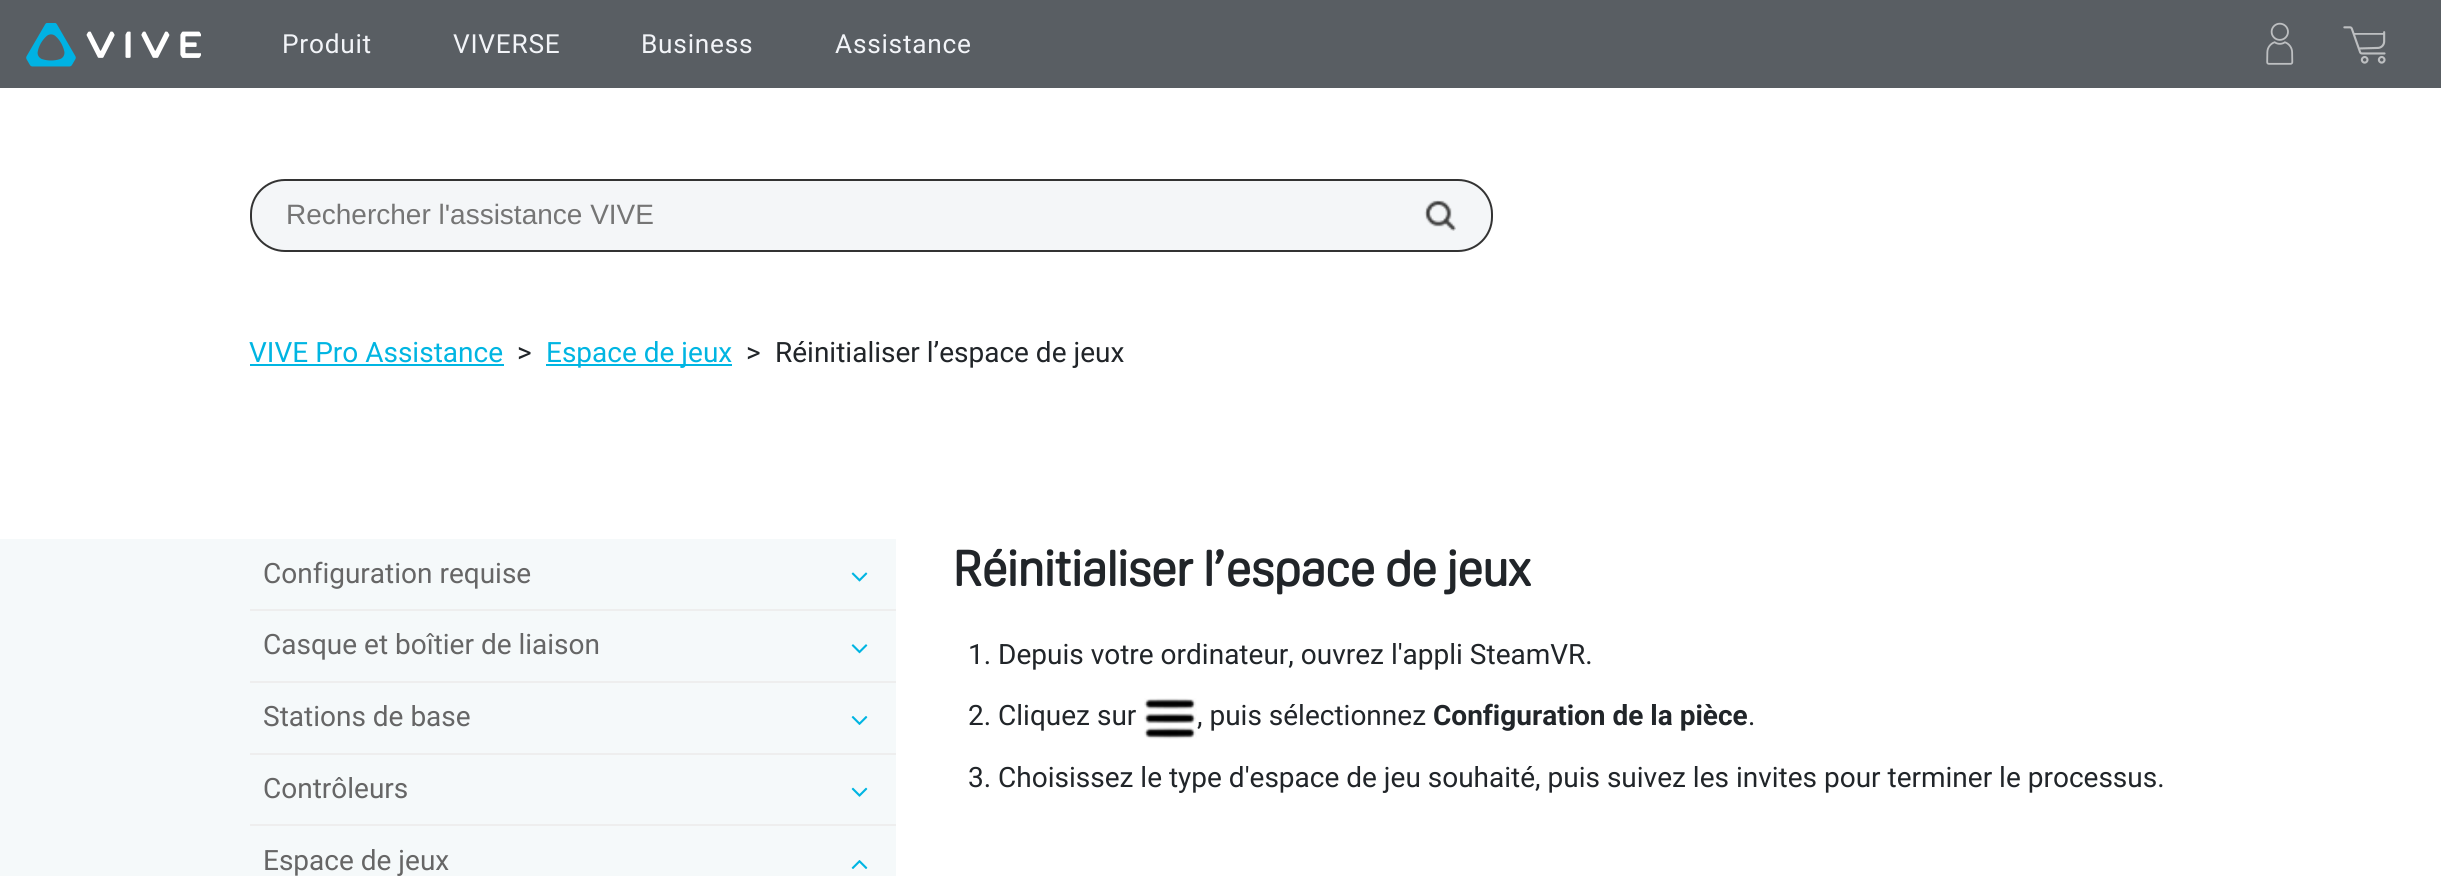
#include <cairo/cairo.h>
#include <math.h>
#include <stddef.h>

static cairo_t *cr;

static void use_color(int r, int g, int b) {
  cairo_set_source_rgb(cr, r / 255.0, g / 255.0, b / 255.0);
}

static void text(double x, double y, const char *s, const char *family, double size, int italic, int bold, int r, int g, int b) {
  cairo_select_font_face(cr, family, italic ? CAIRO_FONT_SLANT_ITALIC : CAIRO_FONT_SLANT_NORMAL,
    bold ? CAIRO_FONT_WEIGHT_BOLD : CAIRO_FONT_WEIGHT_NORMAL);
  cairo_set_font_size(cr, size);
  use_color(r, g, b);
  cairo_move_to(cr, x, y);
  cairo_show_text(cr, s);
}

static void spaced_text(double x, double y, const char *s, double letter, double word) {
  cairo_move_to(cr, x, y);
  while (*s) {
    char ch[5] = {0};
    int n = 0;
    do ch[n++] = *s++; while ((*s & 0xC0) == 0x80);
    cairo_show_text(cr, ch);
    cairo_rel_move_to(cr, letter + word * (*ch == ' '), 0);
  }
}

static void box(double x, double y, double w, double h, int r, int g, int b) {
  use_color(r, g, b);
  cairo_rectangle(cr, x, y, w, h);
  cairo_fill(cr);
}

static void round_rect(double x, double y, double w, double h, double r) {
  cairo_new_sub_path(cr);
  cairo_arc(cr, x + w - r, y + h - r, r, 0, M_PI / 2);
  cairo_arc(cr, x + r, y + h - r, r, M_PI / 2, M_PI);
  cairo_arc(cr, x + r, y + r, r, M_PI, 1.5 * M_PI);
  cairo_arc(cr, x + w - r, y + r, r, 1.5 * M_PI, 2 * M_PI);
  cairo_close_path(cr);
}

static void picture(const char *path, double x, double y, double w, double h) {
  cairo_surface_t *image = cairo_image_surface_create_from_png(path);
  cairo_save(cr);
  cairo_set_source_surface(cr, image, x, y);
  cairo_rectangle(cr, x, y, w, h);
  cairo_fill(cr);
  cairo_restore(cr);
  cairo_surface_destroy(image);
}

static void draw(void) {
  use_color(255, 255, 255);
  cairo_paint(cr);
  box(0, 0, 2441, 88, 89, 94, 99);
  picture("img_01.png", 26, 23, 175, 44);
  picture("img_02.png", 2266, 22, 28, 43);
  picture("img_03.png", 2343, 26, 43, 38);
  use_color(244, 246, 248);
  round_rect(251, 180, 1241, 71, 34);
  cairo_fill_preserve(cr);
  use_color(51, 51, 51);
  cairo_stroke(cr);
  picture("img_04.png", 1424, 200, 32, 31);
  box(250, 364, 254, 2, 0, 181, 226);
  box(546, 364, 186, 2, 0, 181, 226);
  box(0, 539, 896, 337, 245, 249, 250);
  box(250, 609, 646, 2, 238, 238, 238);
  picture("img_05.png", 851, 572, 17, 10);
  box(250, 681, 646, 2, 238, 238, 238);
  picture("img_06.png", 851, 644, 17, 10);
  box(250, 753, 646, 2, 238, 238, 238);
  picture("img_07.png", 851, 716, 17, 9);
  box(250, 824, 646, 2, 238, 238, 238);
  picture("img_08.png", 851, 787, 17, 10);
  picture("img_09.png", 851, 860, 17, 9);
  picture("img_10.png", 1144, 698, 53, 41);
  cairo_select_font_face(cr, "Roboto", CAIRO_FONT_SLANT_NORMAL, CAIRO_FONT_WEIGHT_NORMAL);
  cairo_set_font_size(cr, 26.25);
  use_color(242, 244, 248);
  spaced_text(282, 53, "Produit", 0.75, 0);
  spaced_text(453, 53, "VIVERSE", 0.75, 0);
  spaced_text(641, 53, "Business", 0.75, 0);
  spaced_text(835, 53, "Assistance", 0.75, 0);
  text(286, 224, "Rechercher l'assistance VIVE", "Liberation Sans", 28, 0, 0, 117, 117, 117);
  text(249, 362, "VIVE Pro Assistance", "Roboto", 28, 0, 0, 0, 181, 226);
  text(517, 362, ">", "Roboto", 28, 0, 0, 33, 37, 41);
  text(546, 362, "Espace de jeux", "Roboto", 28, 0, 0, 0, 181, 226);
  text(746, 362, ">", "Roboto", 28, 0, 0, 33, 37, 41);
  text(775, 362, "Réinitialiser l’espace de jeux", "Roboto", 28, 0, 0, 33, 37, 41);
  text(263, 583, "Configuration requise", "Roboto", 28, 0, 0, 102, 102, 102);
  text(263, 654, "Casque et boîtier de liaison", "Roboto", 28, 0, 0, 102, 102, 102);
  text(263, 726, "Stations de base", "Roboto", 28, 0, 0, 102, 102, 102);
  text(263, 798, "Contrôleurs", "Roboto", 28, 0, 0, 102, 102, 102);
  text(263, 870, "Espace de jeux", "Roboto", 28, 0, 0, 102, 102, 102);
  text(953, 586, "Réinitialiser l’espace de jeux", "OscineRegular", 49, 0, 1, 33, 37, 41);
  text(968, 664, "1. Depuis votre ordinateur, ouvrez l'appli SteamVR.", "Roboto", 28, 0, 0, 33, 37, 41);
  text(968, 725, "2. Cliquez sur", "Roboto", 28, 0, 0, 33, 37, 41);
  text(1197, 725, ", puis sélectionnez", "Roboto", 28, 0, 0, 33, 37, 41);
  text(1433, 725, "Configuration de la pièce", "Roboto", 28, 0, 1, 33, 37, 41);
  text(1748, 725, ".", "Roboto", 28, 0, 0, 33, 37, 41);
  text(968, 787, "3. Choisissez le type d'espace de jeu souhaité, puis suivez les invites pour terminer le processus.", "Roboto", 28, 0, 0, 33, 37, 41);
}

int main(void) {
  cairo_surface_t *surface = cairo_image_surface_create(CAIRO_FORMAT_RGB24, 2441, 876);
  cr = cairo_create(surface);
  cairo_font_options_t *options = cairo_font_options_create();
  cairo_font_options_set_hint_metrics(options, CAIRO_HINT_METRICS_OFF);
  cairo_font_options_set_hint_style(options, CAIRO_HINT_STYLE_NONE);
  cairo_set_font_options(cr, options);
  cairo_set_miter_limit(cr, 4);
  draw();
  cairo_surface_write_to_png(surface, "out.png");
  cairo_font_options_destroy(options);
  cairo_destroy(cr);
  cairo_surface_destroy(surface);
  return 0;
}
